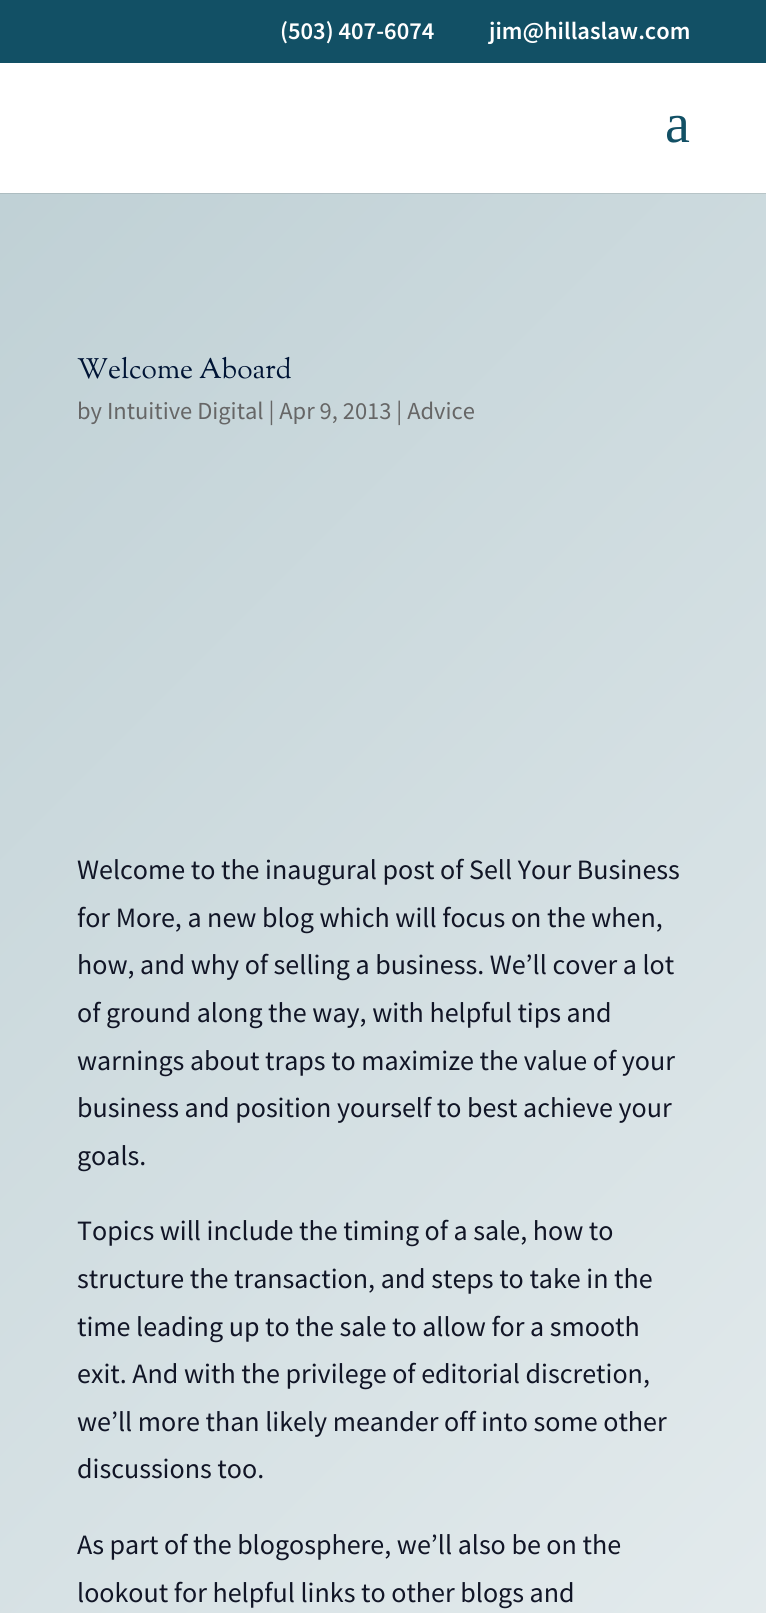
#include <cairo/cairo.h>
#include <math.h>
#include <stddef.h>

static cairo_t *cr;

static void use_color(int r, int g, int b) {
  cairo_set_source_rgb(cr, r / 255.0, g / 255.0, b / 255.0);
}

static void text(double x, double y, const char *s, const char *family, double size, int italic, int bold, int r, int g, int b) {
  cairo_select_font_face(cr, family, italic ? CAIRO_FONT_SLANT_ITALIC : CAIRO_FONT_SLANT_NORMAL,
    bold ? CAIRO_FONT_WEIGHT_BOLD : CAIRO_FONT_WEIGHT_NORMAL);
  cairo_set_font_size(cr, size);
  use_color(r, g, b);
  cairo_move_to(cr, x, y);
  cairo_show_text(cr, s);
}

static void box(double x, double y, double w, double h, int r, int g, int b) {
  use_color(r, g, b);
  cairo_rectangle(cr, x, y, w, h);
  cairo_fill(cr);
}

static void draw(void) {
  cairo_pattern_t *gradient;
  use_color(255, 255, 255);
  cairo_paint(cr);
  box(0, 0, 766, 63, 18, 80, 101);
  gradient = cairo_pattern_create_linear(-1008, 1148, 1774, 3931);
  cairo_pattern_add_color_stop_rgba(gradient, 0, 0.749, 0.816, 0.835, 1);
  cairo_pattern_add_color_stop_rgba(gradient, 0.72, 1, 1, 1, 1);
  cairo_set_source(cr, gradient);
  cairo_pattern_destroy(gradient);
  cairo_rectangle(cr, 0, 193, 766, 1420);
  cairo_fill(cr);
  cairo_set_source_rgba(cr, 0, 0, 0, 0.1);
  cairo_new_path(cr);
  cairo_move_to(cr, 0, 192);
  cairo_line_to(cr, 0, 194);
  cairo_line_to(cr, 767, 194);
  cairo_line_to(cr, 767, 54);
  cairo_line_to(cr, 766, 54);
  cairo_line_to(cr, 766, 192);
  cairo_close_path(cr);
  cairo_fill(cr);
  box(0, 192, 766, 1, 255, 255, 255);
  text(280, 39, "(503) 407-6074", "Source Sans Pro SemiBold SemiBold", 24.5, 0, 0, 255, 255, 255);
  text(489, 39, "jim@hillaslaw.com", "Source Sans Pro SemiBold SemiBold", 24.5, 0, 0, 255, 255, 255);
  text(665, 142, "a", "Liberation Serif", 56, 0, 0, 18, 80, 101);
  text(77, 378, "Welcome Aboard", "Sorts Mill Goudy", 28, 0, 0, 0, 20, 53);
  text(77, 419, "by Intuitive Digital | Apr 9, 2013 | Advice", "Source Sans Pro", 24.5, 0, 0, 102, 102, 102);
  text(77, 879, "Welcome to the inaugural post of Sell Your Business", "Source Sans Pro", 28, 0, 0, 17, 21, 38);
  text(77, 927, "for More, a new blog which will focus on the when,", "Source Sans Pro", 28, 0, 0, 17, 21, 38);
  text(77, 974, "how, and why of selling a business. We’ll cover a lot", "Source Sans Pro", 28, 0, 0, 17, 21, 38);
  text(77, 1022, "of ground along the way, with helpful tips and", "Source Sans Pro", 28, 0, 0, 17, 21, 38);
  text(77, 1070, "warnings about traps to maximize the value of your", "Source Sans Pro", 28, 0, 0, 17, 21, 38);
  text(77, 1117, "business and position yourself to best achieve your", "Source Sans Pro", 28, 0, 0, 17, 21, 38);
  text(77, 1165, "goals.", "Source Sans Pro", 28, 0, 0, 17, 21, 38);
  text(77, 1240, "Topics will include the timing of a sale, how to", "Source Sans Pro", 28, 0, 0, 17, 21, 38);
  text(77, 1288, "structure the transaction, and steps to take in the", "Source Sans Pro", 28, 0, 0, 17, 21, 38);
  text(77, 1336, "time leading up to the sale to allow for a smooth", "Source Sans Pro", 28, 0, 0, 17, 21, 38);
  text(77, 1383, "exit. And with the privilege of editorial discretion,", "Source Sans Pro", 28, 0, 0, 17, 21, 38);
  text(77, 1431, "we’ll more than likely meander off into some other", "Source Sans Pro", 28, 0, 0, 17, 21, 38);
  text(77, 1478, "discussions too.", "Source Sans Pro", 28, 0, 0, 17, 21, 38);
  text(77, 1554, "As part of the blogosphere, we’ll also be on the", "Source Sans Pro", 28, 0, 0, 17, 21, 38);
  text(77, 1602, "lookout for helpful links to other blogs and", "Source Sans Pro", 28, 0, 0, 17, 21, 38);
}

int main(void) {
  cairo_surface_t *surface = cairo_image_surface_create(CAIRO_FORMAT_RGB24, 766, 1613);
  cr = cairo_create(surface);
  cairo_font_options_t *options = cairo_font_options_create();
  cairo_font_options_set_hint_metrics(options, CAIRO_HINT_METRICS_OFF);
  cairo_font_options_set_hint_style(options, CAIRO_HINT_STYLE_NONE);
  cairo_set_font_options(cr, options);
  cairo_set_miter_limit(cr, 4);
  draw();
  cairo_surface_write_to_png(surface, "out.png");
  cairo_font_options_destroy(options);
  cairo_destroy(cr);
  cairo_surface_destroy(surface);
  return 0;
}
